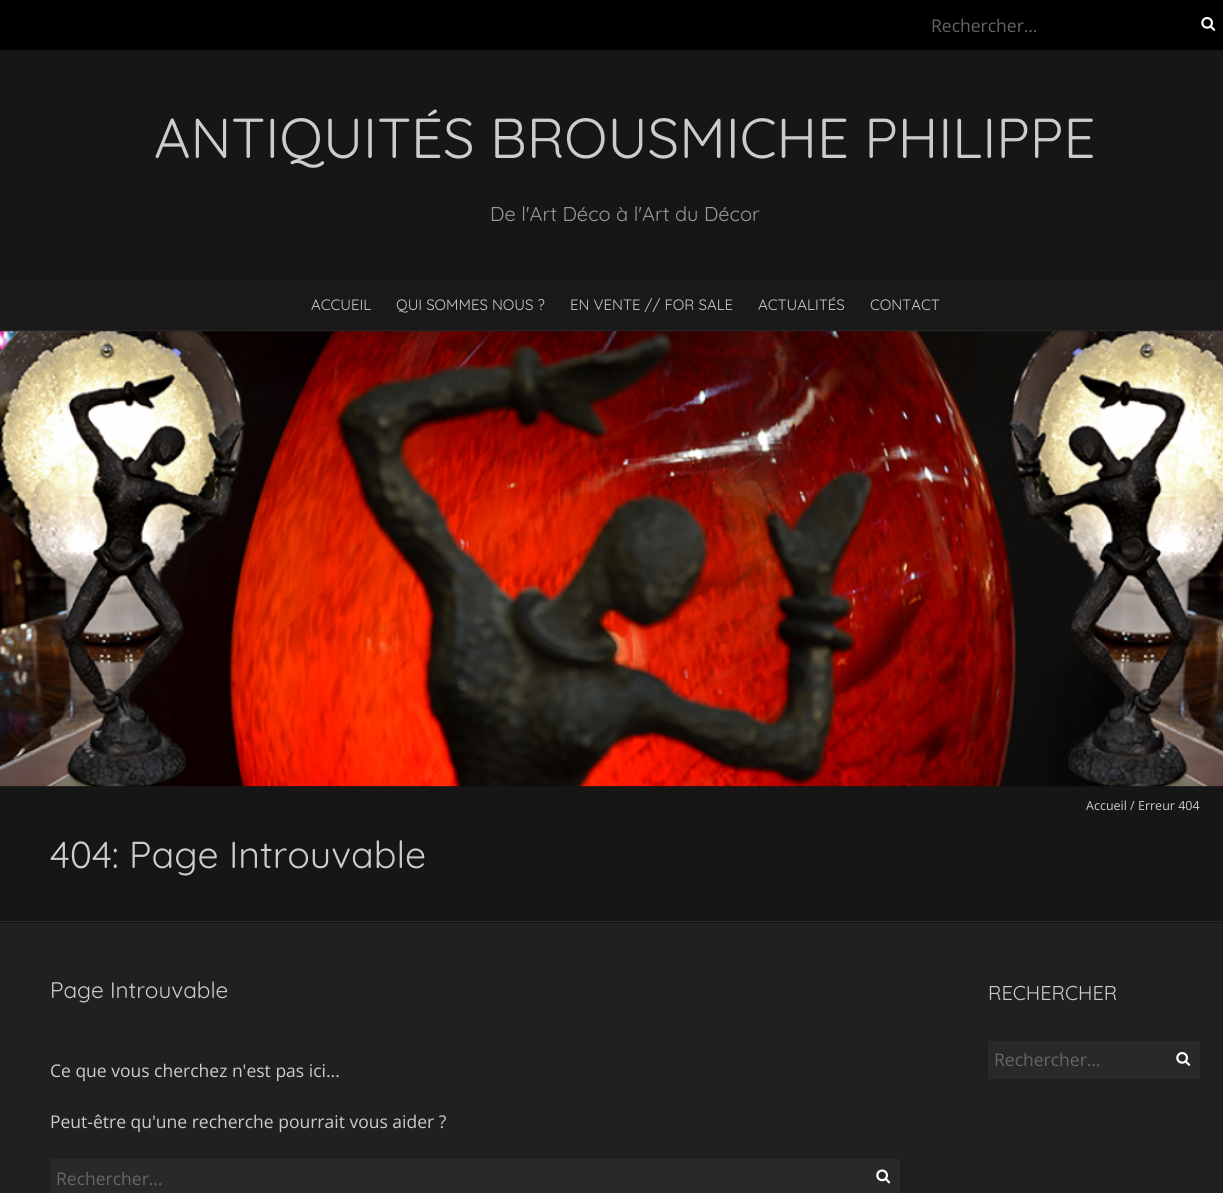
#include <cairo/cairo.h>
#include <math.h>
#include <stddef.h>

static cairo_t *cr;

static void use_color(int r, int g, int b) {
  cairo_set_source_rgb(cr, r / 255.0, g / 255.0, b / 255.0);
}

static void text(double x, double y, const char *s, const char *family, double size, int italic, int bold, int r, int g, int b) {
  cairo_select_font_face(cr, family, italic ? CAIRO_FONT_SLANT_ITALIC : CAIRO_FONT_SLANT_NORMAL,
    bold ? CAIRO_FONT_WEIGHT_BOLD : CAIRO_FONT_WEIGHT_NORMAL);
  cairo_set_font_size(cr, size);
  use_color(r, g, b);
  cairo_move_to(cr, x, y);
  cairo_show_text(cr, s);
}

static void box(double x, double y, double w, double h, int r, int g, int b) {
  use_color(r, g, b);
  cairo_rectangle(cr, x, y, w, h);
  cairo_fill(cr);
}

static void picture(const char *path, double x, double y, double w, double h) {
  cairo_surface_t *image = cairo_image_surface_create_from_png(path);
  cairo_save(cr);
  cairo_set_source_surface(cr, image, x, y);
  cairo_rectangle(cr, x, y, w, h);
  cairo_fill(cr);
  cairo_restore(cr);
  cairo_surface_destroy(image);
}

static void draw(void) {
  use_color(32, 32, 32);
  cairo_paint(cr);
  box(0, 0, 1223, 50, 0, 0, 0);
  picture("img_01.png", 1201, 17, 15, 14);
  box(0, 50, 1223, 230, 22, 22, 22);
  box(0, 280, 1223, 50, 25, 25, 25);
  box(0, 330, 1223, 1, 37, 37, 37);
  picture("img_02.png", 0, 331, 1223, 456);
  cairo_set_source_rgba(cr, 0, 0, 0, 0.3);
  cairo_rectangle(cr, 0, 786, 1223, 137);
  cairo_fill(cr);
  box(0, 921, 1223, 1, 41, 41, 41);
  box(50, 1159, 850, 34, 41, 41, 41);
  picture("img_03.png", 876, 1169, 15, 15);
  box(988, 1041, 212, 38, 41, 41, 41);
  picture("img_04.png", 1176, 1052, 15, 14);
  text(931, 32, "Rechercher…", "Open Sans", 17.5, 0, 0, 102, 102, 102);
  text(154, 158, "ANTIQUITÉS BROUSMICHE PHILIPPE", "Quicksand", 56.25, 0, 0, 204, 204, 204);
  text(490, 221, "De l'Art Déco à l'Art du Décor", "Quicksand", 20, 0, 0, 153, 153, 153);
  text(311, 310, "ACCUEIL", "Quicksand", 15, 0, 0, 204, 204, 204);
  text(396, 310, "QUI SOMMES NOUS ?", "Quicksand", 15, 0, 0, 204, 204, 204);
  text(570, 310, "EN VENTE // FOR SALE", "Quicksand", 15, 0, 0, 204, 204, 204);
  text(758, 310, "ACTUALITÉS", "Quicksand", 15, 0, 0, 204, 204, 204);
  text(870, 310, "CONTACT", "Quicksand", 15, 0, 0, 204, 204, 204);
  text(1086, 810, "Accueil / Erreur 404", "Open Sans", 12.5, 0, 0, 204, 204, 204);
  text(50, 868, "404: Page Introuvable", "Quicksand", 37.5, 0, 0, 204, 204, 204);
  text(50, 998, "Page Introuvable", "Quicksand", 22.5, 0, 0, 204, 204, 204);
  text(50, 1077, "Ce que vous cherchez n'est pas ici...", "Open Sans", 17.5, 0, 0, 204, 204, 204);
  text(50, 1128, "Peut-être qu'une recherche pourrait vous aider ?", "Open Sans", 17.5, 0, 0, 204, 204, 204);
  text(56, 1185, "Rechercher…", "Open Sans", 17.5, 0, 0, 102, 102, 102);
  text(988, 1000, "RECHERCHER", "Quicksand", 20, 0, 0, 204, 204, 204);
  text(994, 1066, "Rechercher…", "Open Sans", 17.5, 0, 0, 102, 102, 102);
}

int main(void) {
  cairo_surface_t *surface = cairo_image_surface_create(CAIRO_FORMAT_RGB24, 1223, 1193);
  cr = cairo_create(surface);
  cairo_font_options_t *options = cairo_font_options_create();
  cairo_font_options_set_hint_metrics(options, CAIRO_HINT_METRICS_OFF);
  cairo_font_options_set_hint_style(options, CAIRO_HINT_STYLE_NONE);
  cairo_set_font_options(cr, options);
  cairo_set_miter_limit(cr, 4);
  draw();
  cairo_surface_write_to_png(surface, "out.png");
  cairo_font_options_destroy(options);
  cairo_destroy(cr);
  cairo_surface_destroy(surface);
  return 0;
}
